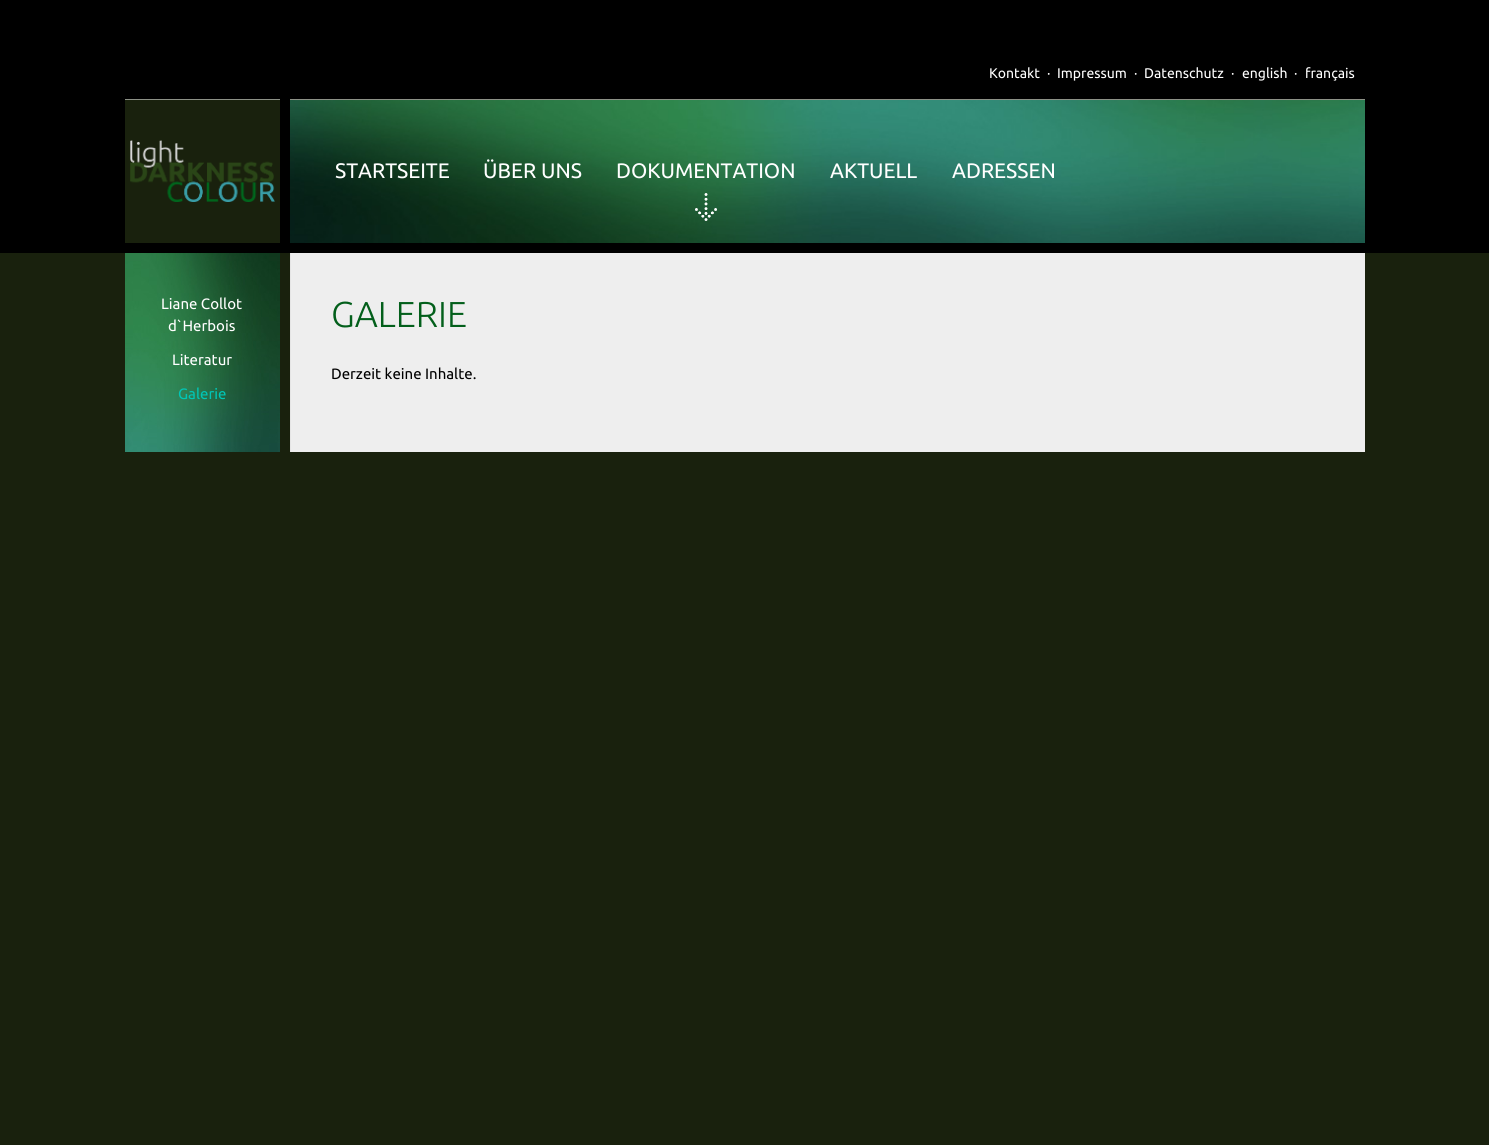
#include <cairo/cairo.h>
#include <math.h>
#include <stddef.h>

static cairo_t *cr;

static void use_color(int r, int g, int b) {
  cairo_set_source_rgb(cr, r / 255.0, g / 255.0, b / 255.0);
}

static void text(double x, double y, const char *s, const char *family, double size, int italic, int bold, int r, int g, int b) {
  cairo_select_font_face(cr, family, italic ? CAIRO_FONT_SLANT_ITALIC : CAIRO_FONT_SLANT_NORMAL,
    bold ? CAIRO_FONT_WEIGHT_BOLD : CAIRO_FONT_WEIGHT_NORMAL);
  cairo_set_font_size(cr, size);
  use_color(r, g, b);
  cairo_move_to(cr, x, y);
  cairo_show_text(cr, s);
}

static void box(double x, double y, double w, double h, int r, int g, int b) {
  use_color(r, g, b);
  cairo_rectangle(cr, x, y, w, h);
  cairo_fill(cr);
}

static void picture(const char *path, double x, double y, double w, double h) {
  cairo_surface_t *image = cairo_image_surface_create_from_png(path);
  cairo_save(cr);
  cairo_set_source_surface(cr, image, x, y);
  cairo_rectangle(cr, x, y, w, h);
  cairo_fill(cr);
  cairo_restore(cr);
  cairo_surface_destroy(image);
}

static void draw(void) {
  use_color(25, 33, 13);
  cairo_paint(cr);
  box(0, 0, 1489, 253, 0, 0, 0);
  box(125, 100, 155, 143, 25, 33, 13);
  box(125, 99, 155, 1, 140, 144, 134);
  picture("img_01.png", 130, 140, 145, 62);
  picture("img_02.png", 290, 100, 1075, 143);
  box(290, 99, 1075, 1, 140, 144, 134);
  picture("img_03.png", 695, 193, 22, 28);
  box(291, 253, 1074, 199, 238, 238, 238);
  picture("img_04.png", 125, 253, 155, 199);
  box(290, 253, 1, 199, 229, 229, 229);
  text(989, 78, "Kontakt", "Ubuntu", 14, 0, 0, 255, 255, 255);
  text(1047, 78, "·", "Ubuntu", 14, 0, 0, 255, 255, 255);
  text(1057, 78, "Impressum", "Ubuntu", 14, 0, 0, 255, 255, 255);
  text(1134, 78, "·", "Ubuntu", 14, 0, 0, 255, 255, 255);
  text(1144, 78, "Datenschutz", "Ubuntu", 14, 0, 0, 255, 255, 255);
  text(1231, 78, "·", "Ubuntu", 14, 0, 0, 255, 255, 255);
  text(1242, 78, "english", "Ubuntu", 14, 0, 0, 255, 255, 255);
  text(1294, 78, "·", "Ubuntu", 14, 0, 0, 255, 255, 255);
  text(1305, 78, "français", "Ubuntu", 14, 0, 0, 255, 255, 255);
  text(335, 178, "STARTSEITE", "Ubuntu", 21, 0, 0, 255, 255, 255);
  text(483, 178, "ÜBER UNS", "Ubuntu", 21, 0, 0, 255, 255, 255);
  text(616, 178, "DOKUMENTATION", "Ubuntu", 21, 0, 0, 255, 255, 255);
  text(830, 178, "AKTUELL", "Ubuntu", 21, 0, 0, 255, 255, 255);
  text(952, 178, "ADRESSEN", "Ubuntu", 21, 0, 0, 255, 255, 255);
  text(161, 309, "Liane Collot", "Ubuntu", 15, 0, 0, 255, 255, 255);
  text(168, 331, "d`Herbois", "Ubuntu", 15, 0, 0, 255, 255, 255);
  text(172, 365, "Literatur", "Ubuntu", 15, 0, 0, 255, 255, 255);
  text(178, 399, "Galerie", "Ubuntu", 15, 0, 0, 0, 198, 182);
  text(331, 327, "GALERIE", "Ubuntu Light", 36, 0, 0, 3, 95, 27);
  text(331, 379, "Derzeit keine Inhalte.", "Ubuntu", 15, 0, 0, 0, 0, 0);
}

int main(void) {
  cairo_surface_t *surface = cairo_image_surface_create(CAIRO_FORMAT_RGB24, 1489, 1145);
  cr = cairo_create(surface);
  cairo_font_options_t *options = cairo_font_options_create();
  cairo_font_options_set_hint_metrics(options, CAIRO_HINT_METRICS_OFF);
  cairo_font_options_set_hint_style(options, CAIRO_HINT_STYLE_NONE);
  cairo_set_font_options(cr, options);
  cairo_set_miter_limit(cr, 4);
  draw();
  cairo_surface_write_to_png(surface, "out.png");
  cairo_font_options_destroy(options);
  cairo_destroy(cr);
  cairo_surface_destroy(surface);
  return 0;
}
